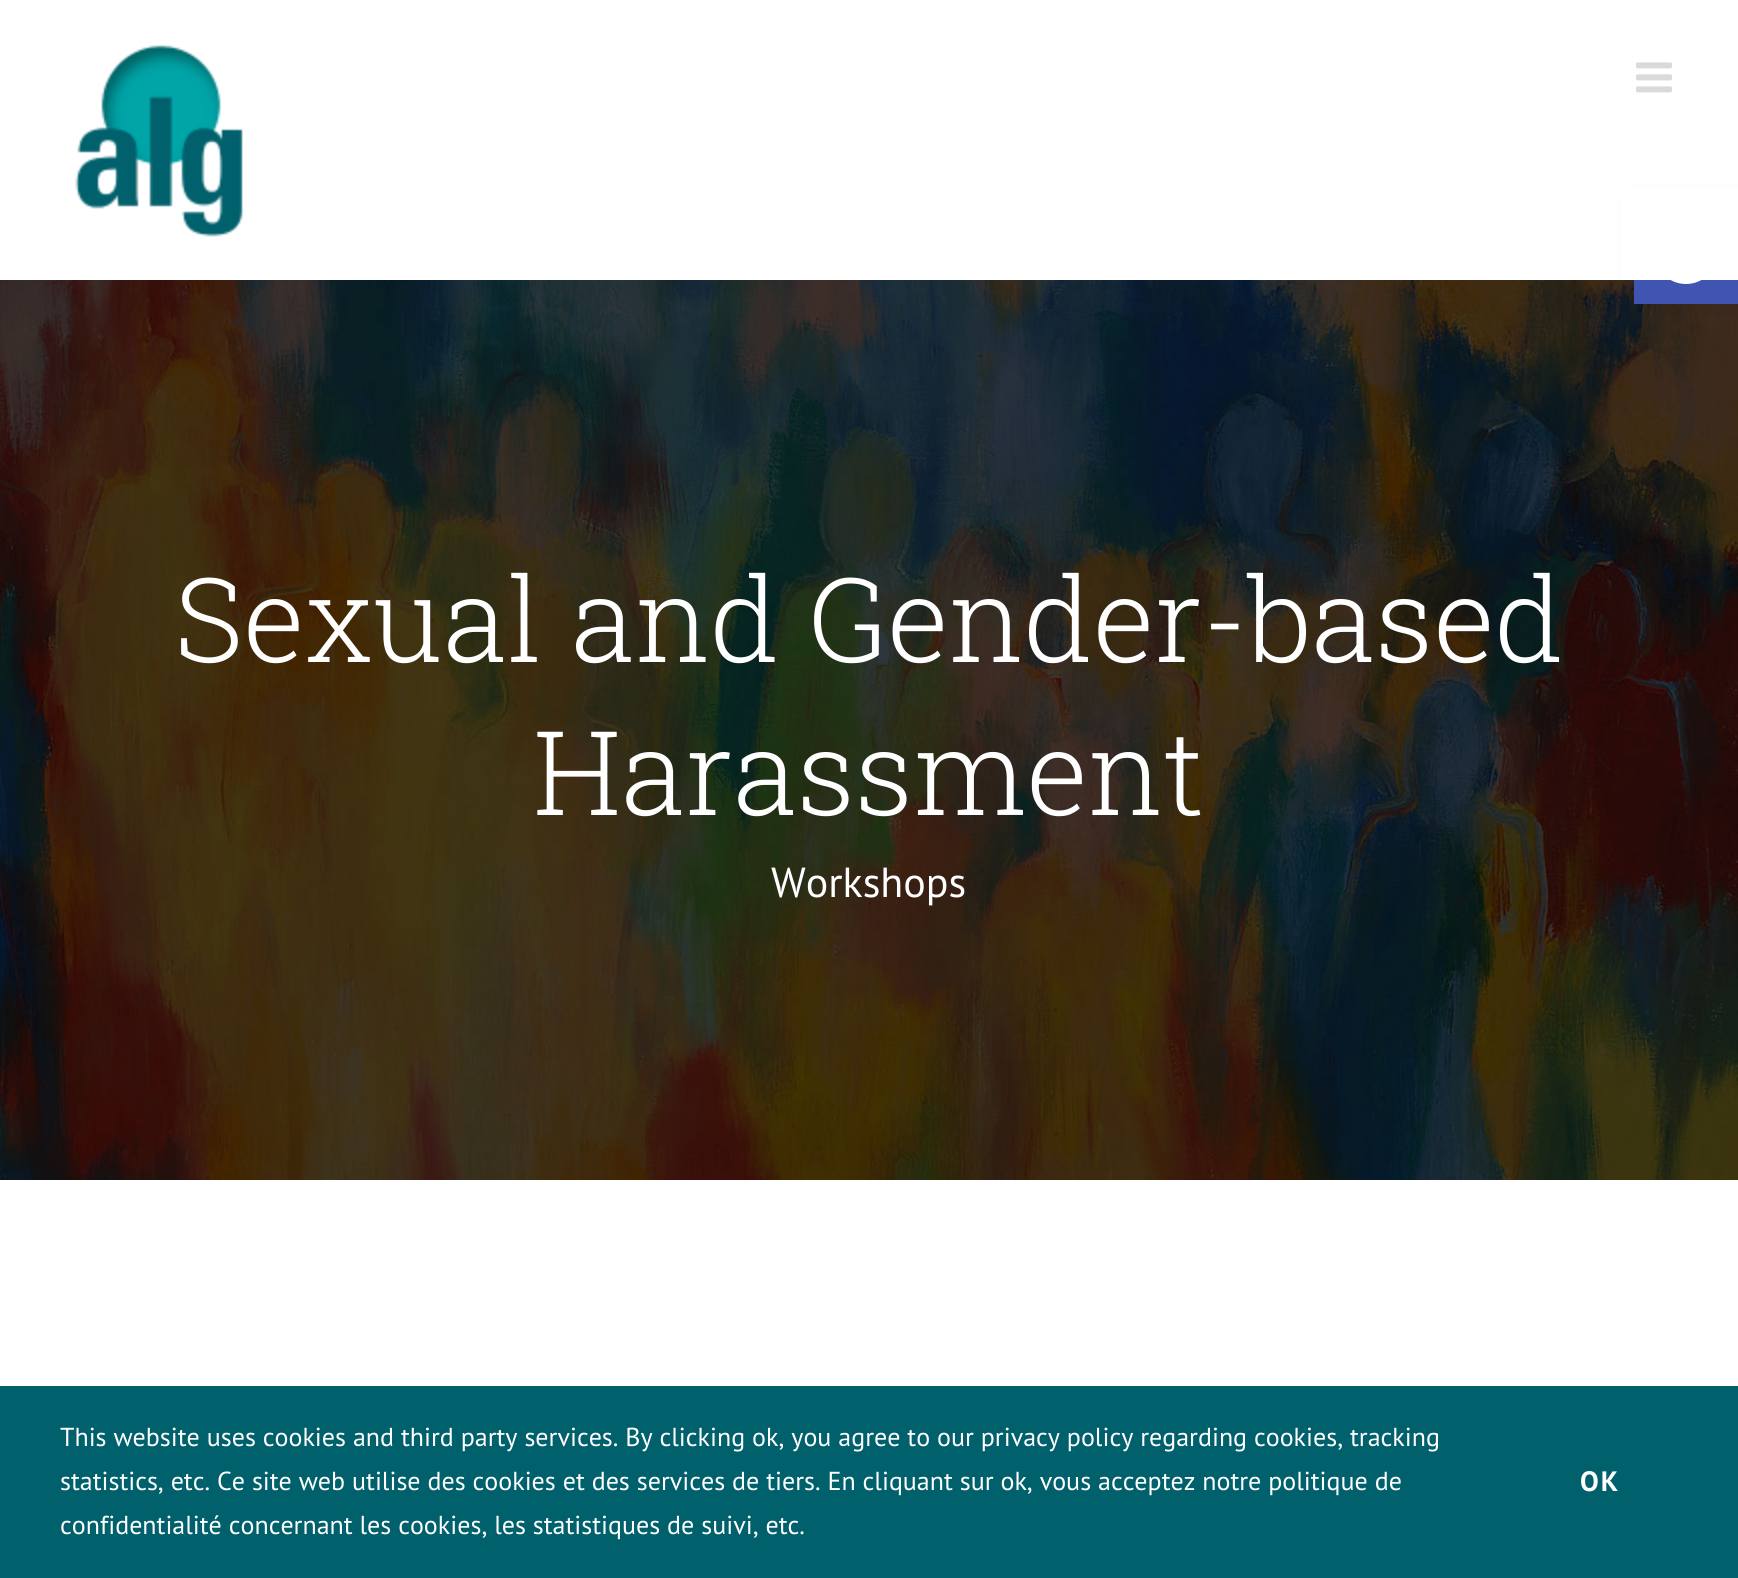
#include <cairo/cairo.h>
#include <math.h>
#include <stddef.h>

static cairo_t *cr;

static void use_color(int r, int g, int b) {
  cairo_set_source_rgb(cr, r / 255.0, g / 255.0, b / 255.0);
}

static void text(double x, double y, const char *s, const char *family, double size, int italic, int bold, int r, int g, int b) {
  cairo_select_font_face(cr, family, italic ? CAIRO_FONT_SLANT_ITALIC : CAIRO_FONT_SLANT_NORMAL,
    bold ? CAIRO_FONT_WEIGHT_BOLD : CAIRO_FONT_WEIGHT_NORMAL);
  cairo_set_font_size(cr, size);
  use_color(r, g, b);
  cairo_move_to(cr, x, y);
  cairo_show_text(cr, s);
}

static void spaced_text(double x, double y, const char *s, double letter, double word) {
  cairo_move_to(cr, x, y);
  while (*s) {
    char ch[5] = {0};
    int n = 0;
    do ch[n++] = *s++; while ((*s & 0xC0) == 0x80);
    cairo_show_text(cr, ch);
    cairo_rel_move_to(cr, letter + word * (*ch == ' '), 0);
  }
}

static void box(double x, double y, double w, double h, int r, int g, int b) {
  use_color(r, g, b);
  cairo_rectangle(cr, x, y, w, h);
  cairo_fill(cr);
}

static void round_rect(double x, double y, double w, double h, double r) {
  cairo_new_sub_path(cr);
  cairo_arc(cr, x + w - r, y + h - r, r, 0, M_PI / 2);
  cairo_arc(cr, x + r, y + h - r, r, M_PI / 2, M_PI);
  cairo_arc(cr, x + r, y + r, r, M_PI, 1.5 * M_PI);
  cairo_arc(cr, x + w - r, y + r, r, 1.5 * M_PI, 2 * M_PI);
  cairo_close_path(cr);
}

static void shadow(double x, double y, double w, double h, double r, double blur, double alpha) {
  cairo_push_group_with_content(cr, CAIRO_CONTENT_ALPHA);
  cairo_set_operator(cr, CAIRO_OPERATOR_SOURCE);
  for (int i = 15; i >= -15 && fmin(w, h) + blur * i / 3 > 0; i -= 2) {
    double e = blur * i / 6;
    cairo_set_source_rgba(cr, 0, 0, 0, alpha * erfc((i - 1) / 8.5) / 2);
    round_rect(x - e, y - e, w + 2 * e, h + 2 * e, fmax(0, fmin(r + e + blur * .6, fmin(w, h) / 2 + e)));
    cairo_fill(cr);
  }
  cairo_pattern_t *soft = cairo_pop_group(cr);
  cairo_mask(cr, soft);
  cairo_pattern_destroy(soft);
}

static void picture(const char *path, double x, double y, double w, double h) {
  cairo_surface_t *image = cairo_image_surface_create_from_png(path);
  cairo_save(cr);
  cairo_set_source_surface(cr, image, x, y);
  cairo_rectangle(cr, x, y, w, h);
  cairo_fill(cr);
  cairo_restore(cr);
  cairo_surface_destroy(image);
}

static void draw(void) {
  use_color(255, 255, 255);
  cairo_paint(cr);
  picture("img_04.png", 0, 280, 1738, 900);
  use_color(0, 0, 0);
  shadow(1634, 200, 104, 104, 0, 10, 0.1);
  box(1634, 280, 104, 24, 64, 84, 178);
  picture("img_01.png", 1670, 280, 32, 4);
  box(1621, 187, 117, 93, 255, 255, 255);
  picture("img_02.png", 75, 45, 168, 192);
  picture("img_03.png", 1636, 62, 36, 31);
  box(0, 1386, 1738, 192, 0, 96, 108);
  text(175, 662, "Sexual and Gender-based", "Roboto Slab Light", 117.1, 0, 0, 255, 255, 255);
  text(533, 815, "Harassment", "Roboto Slab Light", 117.1, 0, 0, 255, 255, 255);
  text(771, 897, "Workshops", "PT Sans", 42, 0, 0, 255, 255, 255);
  text(60, 1446, "This website uses cookies and third party services. By clicking ok, you agree to our privacy policy regarding cookies, tracking", "PT Sans", 26, 0, 0, 255, 255, 255);
  text(60, 1490, "statistics, etc. Ce site web utilise des cookies et des services de tiers. En cliquant sur ok, vous acceptez notre politique de", "PT Sans", 26, 0, 0, 255, 255, 255);
  text(60, 1534, "confidentialité concernant les cookies, les statistiques de suivi, etc.", "PT Sans", 26, 0, 0, 255, 255, 255);
  cairo_select_font_face(cr, "PT Sans", CAIRO_FONT_SLANT_NORMAL, CAIRO_FONT_WEIGHT_BOLD);
  cairo_set_font_size(cr, 28);
  spaced_text(1580, 1491, "OK", 2, 0);
}

int main(void) {
  cairo_surface_t *surface = cairo_image_surface_create(CAIRO_FORMAT_RGB24, 1738, 1578);
  cr = cairo_create(surface);
  cairo_font_options_t *options = cairo_font_options_create();
  cairo_font_options_set_hint_metrics(options, CAIRO_HINT_METRICS_OFF);
  cairo_font_options_set_hint_style(options, CAIRO_HINT_STYLE_NONE);
  cairo_set_font_options(cr, options);
  cairo_set_miter_limit(cr, 4);
  draw();
  cairo_surface_write_to_png(surface, "out.png");
  cairo_font_options_destroy(options);
  cairo_destroy(cr);
  cairo_surface_destroy(surface);
  return 0;
}
